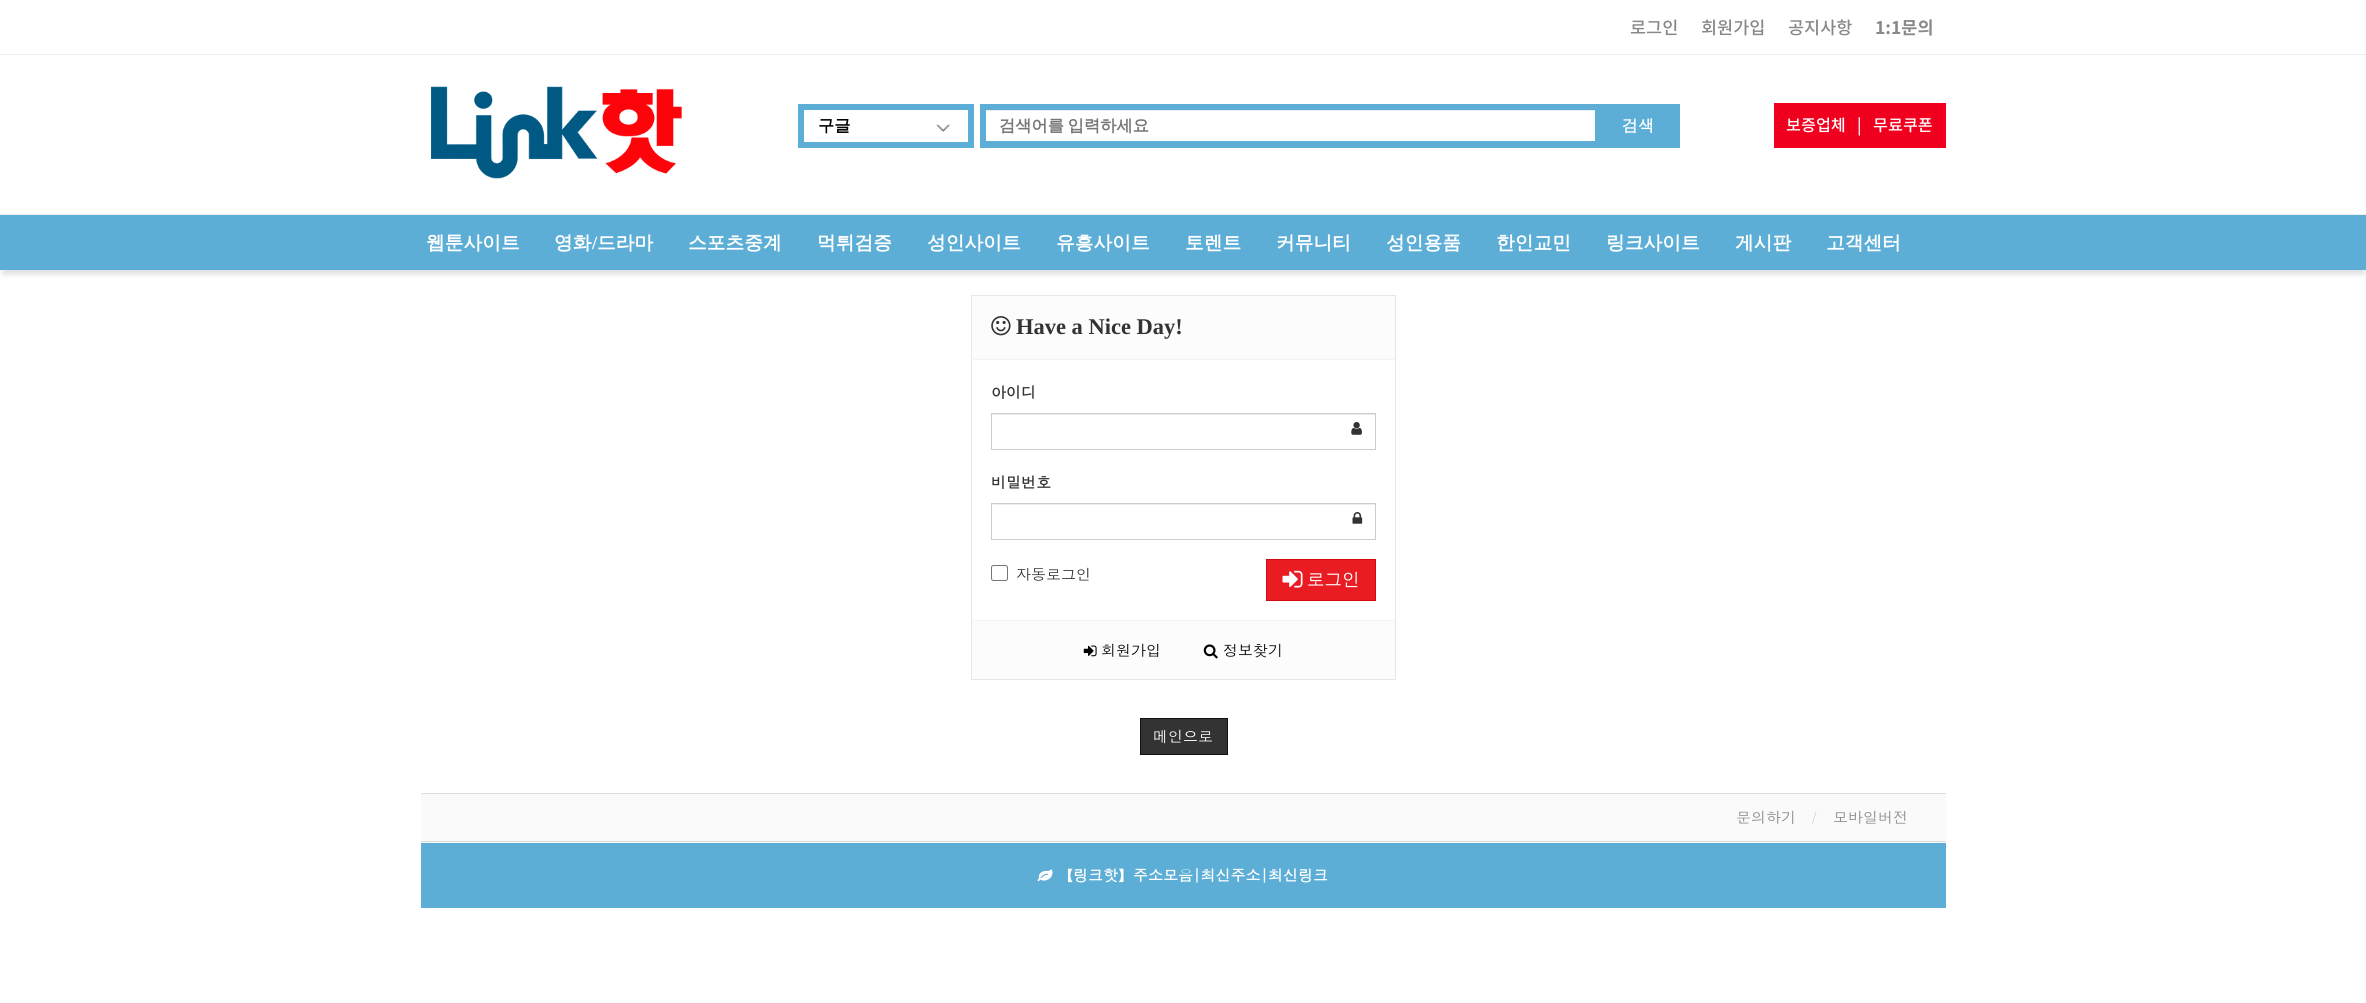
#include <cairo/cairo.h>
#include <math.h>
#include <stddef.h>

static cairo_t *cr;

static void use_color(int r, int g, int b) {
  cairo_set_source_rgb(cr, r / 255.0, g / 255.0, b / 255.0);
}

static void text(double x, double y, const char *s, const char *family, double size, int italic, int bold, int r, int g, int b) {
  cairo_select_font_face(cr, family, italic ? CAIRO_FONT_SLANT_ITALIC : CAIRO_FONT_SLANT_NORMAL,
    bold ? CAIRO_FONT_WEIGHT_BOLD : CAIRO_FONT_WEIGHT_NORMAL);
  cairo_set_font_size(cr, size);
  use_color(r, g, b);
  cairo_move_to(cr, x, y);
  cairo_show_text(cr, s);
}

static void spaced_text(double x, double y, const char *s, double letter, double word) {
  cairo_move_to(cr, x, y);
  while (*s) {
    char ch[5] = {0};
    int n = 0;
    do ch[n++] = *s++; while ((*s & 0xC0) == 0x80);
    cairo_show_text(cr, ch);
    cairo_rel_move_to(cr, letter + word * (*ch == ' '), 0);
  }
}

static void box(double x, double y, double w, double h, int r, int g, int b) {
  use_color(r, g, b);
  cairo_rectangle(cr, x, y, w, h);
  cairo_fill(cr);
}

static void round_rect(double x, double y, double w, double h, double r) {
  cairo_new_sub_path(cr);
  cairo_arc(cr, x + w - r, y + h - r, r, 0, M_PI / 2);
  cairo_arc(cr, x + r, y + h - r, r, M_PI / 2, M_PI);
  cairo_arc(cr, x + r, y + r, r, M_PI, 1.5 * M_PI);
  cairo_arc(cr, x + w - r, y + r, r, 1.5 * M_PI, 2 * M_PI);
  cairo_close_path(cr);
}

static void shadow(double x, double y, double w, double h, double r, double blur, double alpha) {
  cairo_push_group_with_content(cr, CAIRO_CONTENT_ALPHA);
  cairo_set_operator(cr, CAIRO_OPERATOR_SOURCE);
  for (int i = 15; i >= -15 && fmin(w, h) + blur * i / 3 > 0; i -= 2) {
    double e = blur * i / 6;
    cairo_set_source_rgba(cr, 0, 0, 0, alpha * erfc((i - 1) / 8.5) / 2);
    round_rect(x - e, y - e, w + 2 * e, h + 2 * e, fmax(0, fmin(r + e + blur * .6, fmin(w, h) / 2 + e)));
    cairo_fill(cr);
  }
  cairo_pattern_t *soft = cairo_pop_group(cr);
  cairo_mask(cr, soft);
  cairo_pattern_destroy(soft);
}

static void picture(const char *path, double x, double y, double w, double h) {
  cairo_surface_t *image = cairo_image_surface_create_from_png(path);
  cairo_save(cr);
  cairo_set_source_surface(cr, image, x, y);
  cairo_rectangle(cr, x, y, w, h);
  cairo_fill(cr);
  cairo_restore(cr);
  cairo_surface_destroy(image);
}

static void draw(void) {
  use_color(255, 255, 255);
  cairo_paint(cr);
  box(0, 54, 2366, 1, 238, 238, 238);
  box(0, 214, 2366, 1, 238, 238, 238);
  picture("img_01.png", 431, 86, 251, 93);
  cairo_rectangle(cr, 801, 107, 170, 38);
  use_color(93, 174, 214);
  cairo_set_line_width(cr, 6);
  cairo_stroke(cr);
  picture("img_02.png", 936, 124, 14, 8);
  box(986, 110, 609, 1, 236, 236, 236);
  box(1595, 104, 85, 44, 93, 174, 214);
  box(980, 104, 616, 6, 93, 174, 214);
  box(980, 141, 616, 7, 93, 174, 214);
  box(980, 104, 6, 44, 93, 174, 214);
  box(1774, 103, 172, 45, 240, 0, 30);
  use_color(25, 25, 25);
  shadow(3, 224, 2361, 50, 0, 3, 0.15);
  box(0, 215, 2366, 55, 93, 174, 214);
  use_color(252, 252, 252);
  cairo_rectangle(cr, 971.5, 295.5, 424, 384);
  cairo_fill_preserve(cr);
  use_color(231, 231, 231);
  cairo_set_line_width(cr, 1);
  cairo_stroke(cr);
  box(973, 359, 422, 1, 243, 243, 243);
  picture("img_03.png", 991, 316, 20, 20);
  box(973, 360, 422, 260, 255, 255, 255);
  box(993, 414, 382, 1, 236, 236, 236);
  cairo_rectangle(cr, 991.5, 413.5, 384, 36);
  use_color(204, 204, 204);
  cairo_stroke(cr);
  picture("img_04.png", 1351, 422, 11, 13);
  box(993, 504, 382, 1, 236, 236, 236);
  cairo_rectangle(cr, 991.5, 503.5, 384, 36);
  use_color(204, 204, 204);
  cairo_stroke(cr);
  picture("img_05.png", 1352, 512, 11, 12);
  round_rect(991.5, 565.5, 16, 15, 2);
  use_color(118, 118, 118);
  cairo_stroke(cr);
  use_color(233, 27, 35);
  cairo_rectangle(cr, 1266.5, 559.5, 109, 41);
  cairo_fill_preserve(cr);
  use_color(213, 7, 15);
  cairo_stroke(cr);
  picture("img_06.png", 1282, 570, 21, 18);
  box(973, 620, 422, 1, 243, 243, 243);
  picture("img_07.png", 1083, 645, 14, 12);
  picture("img_08.png", 1203, 644, 15, 15);
  use_color(51, 51, 51);
  cairo_rectangle(cr, 1140.5, 718.5, 87, 36);
  cairo_fill_preserve(cr);
  use_color(17, 17, 17);
  cairo_stroke(cr);
  box(421, 794, 1525, 49, 250, 250, 250);
  box(421, 793, 1525, 1, 221, 221, 221);
  box(421, 841, 1525, 1, 221, 221, 221);
  box(421, 843, 1525, 65, 93, 174, 214);
  picture("img_09.png", 1037, 869, 16, 13);
  text(1630, 34, "로그인", "Noto Sans KR Medium", 17.5, 0, 0, 136, 136, 136);
  text(1701, 34, "회원가입", "Noto Sans KR Medium", 17.5, 0, 0, 136, 136, 136);
  text(1788, 34, "공지사항", "Noto Sans KR Medium", 17.5, 0, 0, 136, 136, 136);
  text(1875, 34, "1:1문의", "Noto Sans KR", 17.5, 0, 1, 136, 136, 136);
  text(818, 131, "구글", "WenQuanYi Zen Hei", 16.25, 0, 1, 0, 0, 0);
  use_color(119, 119, 119);
  spaced_text(999, 131, "검색어를 입력하세요", 0, -1);
  text(1622, 132, "검색", "Dotum", 16.25, 0, 1, 255, 255, 255);
  text(1786, 131, "보증업체", "Noto Sans KR Medium", 16.25, 0, 0, 255, 255, 255);
  text(1857, 131, "|", "Noto Sans KR Medium", 16.25, 0, 0, 255, 255, 255);
  text(1873, 131, "무료쿠폰", "Noto Sans KR Medium", 16.25, 0, 0, 255, 255, 255);
  text(426, 249, "웹툰사이트", "WenQuanYi Zen Hei", 18.75, 0, 1, 255, 255, 255);
  text(554, 249, "영화", "WenQuanYi Zen Hei", 18.75, 0, 1, 255, 255, 255);
  text(592, 249, "/", "Liberation Serif", 18.75, 0, 1, 255, 255, 255);
  text(597, 249, "드라마", "WenQuanYi Zen Hei", 18.75, 0, 1, 255, 255, 255);
  text(688, 249, "스포츠중계", "WenQuanYi Zen Hei", 18.75, 0, 1, 255, 255, 255);
  text(817, 249, "먹튀검증", "WenQuanYi Zen Hei", 18.75, 0, 1, 255, 255, 255);
  text(927, 249, "성인사이트", "WenQuanYi Zen Hei", 18.75, 0, 1, 255, 255, 255);
  text(1056, 249, "유흥사이트", "WenQuanYi Zen Hei", 18.75, 0, 1, 255, 255, 255);
  text(1185, 249, "토렌트", "WenQuanYi Zen Hei", 18.75, 0, 1, 255, 255, 255);
  text(1276, 249, "커뮤니티", "WenQuanYi Zen Hei", 18.75, 0, 1, 255, 255, 255);
  text(1386, 249, "성인용품", "WenQuanYi Zen Hei", 18.75, 0, 1, 255, 255, 255);
  text(1496, 249, "한인교민", "WenQuanYi Zen Hei", 18.75, 0, 1, 255, 255, 255);
  text(1606, 249, "링크사이트", "WenQuanYi Zen Hei", 18.75, 0, 1, 255, 255, 255);
  text(1735, 249, "게시판", "WenQuanYi Zen Hei", 18.75, 0, 1, 255, 255, 255);
  text(1826, 249, "고객센터", "WenQuanYi Zen Hei", 18.75, 0, 1, 255, 255, 255);
  text(1016, 334, "Have a Nice Day!", "Liberation Serif", 22.5, 0, 1, 51, 51, 51);
  text(991, 398, "아이디", "Dotum", 15, 0, 1, 51, 51, 51);
  text(991, 488, "비밀번호", "Dotum", 15, 0, 1, 51, 51, 51);
  text(1016, 580, "자동로그인", "Dotum", 15, 0, 0, 51, 51, 51);
  text(1307, 585, "로그인", "WenQuanYi Zen Hei Medium", 17.5, 0, 0, 255, 255, 255);
  text(1101, 656, "회원가입", "Dotum", 15, 0, 0, 0, 0, 0);
  text(1223, 656, "정보찾기", "Dotum", 15, 0, 0, 0, 0, 0);
  text(1153, 742, "메인으로", "Dotum", 15, 0, 0, 255, 255, 255);
  text(1736, 823, "문의하기", "Dotum", 15, 0, 0, 136, 136, 136);
  text(1811, 823, "/", "Dotum", 15, 0, 0, 204, 204, 204);
  text(1833, 823, "모바일버전", "Dotum", 15, 0, 0, 136, 136, 136);
  text(1058, 881, "【링크핫】주소모음|최신주소|최신링크", "Dotum", 15, 0, 1, 255, 255, 255);
}

int main(void) {
  cairo_surface_t *surface = cairo_image_surface_create(CAIRO_FORMAT_RGB24, 2366, 1003);
  cr = cairo_create(surface);
  cairo_font_options_t *options = cairo_font_options_create();
  cairo_font_options_set_hint_metrics(options, CAIRO_HINT_METRICS_OFF);
  cairo_font_options_set_hint_style(options, CAIRO_HINT_STYLE_NONE);
  cairo_set_font_options(cr, options);
  cairo_set_miter_limit(cr, 4);
  draw();
  cairo_surface_write_to_png(surface, "out.png");
  cairo_font_options_destroy(options);
  cairo_destroy(cr);
  cairo_surface_destroy(surface);
  return 0;
}
